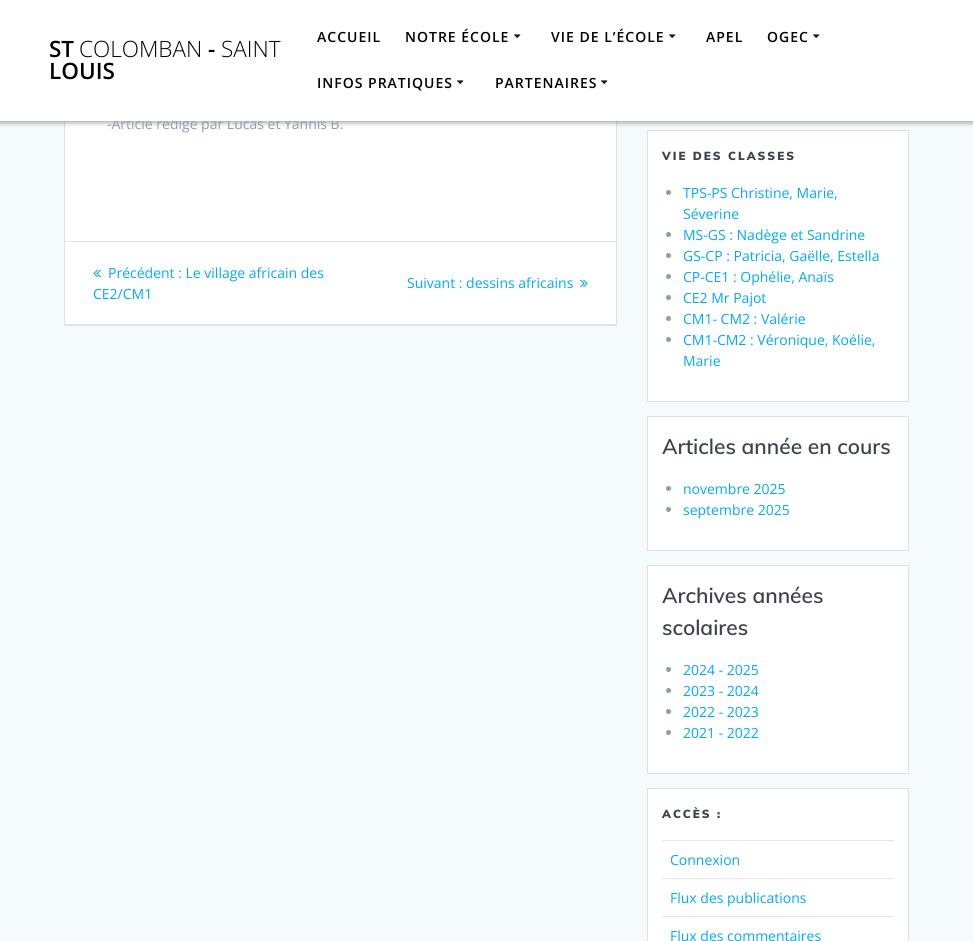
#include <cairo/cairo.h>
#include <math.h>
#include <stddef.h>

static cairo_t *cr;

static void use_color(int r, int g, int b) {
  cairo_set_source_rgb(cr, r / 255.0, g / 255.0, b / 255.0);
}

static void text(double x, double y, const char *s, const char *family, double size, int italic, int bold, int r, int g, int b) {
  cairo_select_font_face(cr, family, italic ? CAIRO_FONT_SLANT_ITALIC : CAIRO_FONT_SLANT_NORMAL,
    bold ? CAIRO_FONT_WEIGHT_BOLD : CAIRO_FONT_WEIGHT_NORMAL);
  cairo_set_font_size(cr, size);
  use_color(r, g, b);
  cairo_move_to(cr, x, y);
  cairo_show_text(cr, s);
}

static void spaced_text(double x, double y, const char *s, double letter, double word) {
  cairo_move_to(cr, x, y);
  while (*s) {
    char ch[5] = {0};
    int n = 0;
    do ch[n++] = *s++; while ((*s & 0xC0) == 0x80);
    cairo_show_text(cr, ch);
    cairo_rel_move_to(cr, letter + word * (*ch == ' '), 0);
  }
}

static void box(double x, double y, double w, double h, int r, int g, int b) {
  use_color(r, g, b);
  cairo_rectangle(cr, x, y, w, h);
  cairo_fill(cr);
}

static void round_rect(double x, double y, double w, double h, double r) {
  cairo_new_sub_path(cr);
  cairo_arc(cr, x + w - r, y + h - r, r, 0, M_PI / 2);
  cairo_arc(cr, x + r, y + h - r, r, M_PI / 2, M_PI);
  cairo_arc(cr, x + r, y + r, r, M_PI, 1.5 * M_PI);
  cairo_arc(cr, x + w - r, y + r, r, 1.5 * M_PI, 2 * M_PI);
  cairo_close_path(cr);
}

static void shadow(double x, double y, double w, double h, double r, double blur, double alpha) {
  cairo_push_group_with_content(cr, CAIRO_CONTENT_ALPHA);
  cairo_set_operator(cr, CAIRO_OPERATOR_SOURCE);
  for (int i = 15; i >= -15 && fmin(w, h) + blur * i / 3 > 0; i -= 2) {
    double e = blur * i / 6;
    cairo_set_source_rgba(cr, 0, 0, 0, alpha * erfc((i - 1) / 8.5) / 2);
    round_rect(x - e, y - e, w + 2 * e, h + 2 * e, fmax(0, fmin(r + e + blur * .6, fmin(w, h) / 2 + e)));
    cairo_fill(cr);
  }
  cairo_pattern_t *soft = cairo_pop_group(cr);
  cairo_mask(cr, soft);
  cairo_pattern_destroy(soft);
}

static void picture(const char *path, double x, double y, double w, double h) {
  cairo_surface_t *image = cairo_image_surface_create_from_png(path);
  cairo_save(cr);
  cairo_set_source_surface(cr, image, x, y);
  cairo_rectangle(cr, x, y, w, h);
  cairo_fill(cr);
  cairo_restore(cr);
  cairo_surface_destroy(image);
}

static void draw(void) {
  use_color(245, 250, 253);
  cairo_paint(cr);
  box(65, 121, 551, 203, 255, 255, 255);
  cairo_rectangle(cr, 64.5, -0.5, 552, 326);
  use_color(224, 225, 225);
  cairo_set_line_width(cr, 1);
  cairo_stroke(cr);
  use_color(255, 255, 255);
  cairo_rectangle(cr, 647.5, 130.5, 261, 271);
  cairo_fill_preserve(cr);
  use_color(224, 225, 225);
  cairo_stroke(cr);
  use_color(0, 0, 0);
  shadow(-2, -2, 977, 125, 0, 2.5, 0.33);
  box(65, 241, 551, 1, 224, 225, 225);
  box(65, 324, 551, 1, 224, 225, 225);
  picture("img_02.png", 93, 269, 8, 9);
  picture("img_03.png", 580, 279, 8, 9);
  use_color(142, 157, 174);
  cairo_arc(cr, 668.5, 192.5, 2.5, 0, 2 * M_PI);
  cairo_fill(cr);
  cairo_arc(cr, 668.5, 234.5, 2.5, 0, 2 * M_PI);
  cairo_fill(cr);
  cairo_arc(cr, 668.5, 255.5, 2.5, 0, 2 * M_PI);
  cairo_fill(cr);
  cairo_arc(cr, 668.5, 276.5, 2.5, 0, 2 * M_PI);
  cairo_fill(cr);
  cairo_arc(cr, 668.5, 297.5, 2.5, 0, 2 * M_PI);
  cairo_fill(cr);
  cairo_arc(cr, 668.5, 318.5, 2.5, 0, 2 * M_PI);
  cairo_fill(cr);
  cairo_arc(cr, 668.5, 339.5, 2.5, 0, 2 * M_PI);
  cairo_fill(cr);
  use_color(255, 255, 255);
  cairo_rectangle(cr, 647.5, 416.5, 261, 134);
  cairo_fill_preserve(cr);
  use_color(224, 225, 225);
  cairo_stroke(cr);
  use_color(142, 157, 174);
  cairo_arc(cr, 668.5, 488.5, 2.5, 0, 2 * M_PI);
  cairo_fill(cr);
  cairo_arc(cr, 668.5, 509.5, 2.5, 0, 2 * M_PI);
  cairo_fill(cr);
  use_color(255, 255, 255);
  cairo_rectangle(cr, 647.5, 565.5, 261, 208);
  cairo_fill_preserve(cr);
  use_color(224, 225, 225);
  cairo_stroke(cr);
  use_color(142, 157, 174);
  cairo_arc(cr, 668.5, 669.5, 2.5, 0, 2 * M_PI);
  cairo_fill(cr);
  cairo_arc(cr, 668.5, 690.5, 2.5, 0, 2 * M_PI);
  cairo_fill(cr);
  cairo_arc(cr, 668.5, 711.5, 2.5, 0, 2 * M_PI);
  cairo_fill(cr);
  cairo_arc(cr, 668.5, 732.5, 2.5, 0, 2 * M_PI);
  cairo_fill(cr);
  use_color(255, 255, 255);
  cairo_rectangle(cr, 647.5, 788.5, 261, 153);
  cairo_fill_preserve(cr);
  use_color(224, 225, 225);
  cairo_stroke(cr);
  box(662, 840, 232, 1, 230, 230, 230);
  box(662, 878, 232, 1, 230, 230, 230);
  box(662, 916, 232, 1, 230, 230, 230);
  text(107, 129, "-Article rédigé par Lucas et Yannis B.", "Open Sans", 14, 0, 0, 142, 157, 174);
  box(0, 0, 973, 121, 255, 255, 255);
  picture("img_01.png", 601, 80, 7, 4);
  cairo_select_font_face(cr, "Open Sans SemiBold", CAIRO_FONT_SLANT_NORMAL, CAIRO_FONT_WEIGHT_NORMAL);
  use_color(0, 0, 0);
  spaced_text(495, 88, "PARTENAIRES", 1, 0);
  picture("img_01.png", 457, 80, 7, 4);
  spaced_text(317, 88, "INFOS PRATIQUES", 1, 0);
  picture("img_01.png", 813, 34, 7, 4);
  spaced_text(767, 42, "OGEC", 1, 0);
  spaced_text(706, 42, "APEL", 1, 0);
  picture("img_01.png", 669, 34, 7, 4);
  spaced_text(551, 42, "VIE DE L’ÉCOLE", 1, 0);
  picture("img_01.png", 514, 34, 7, 4);
  spaced_text(405, 42, "NOTRE ÉCOLE", 1, 0);
  spaced_text(317, 42, "ACCUEIL", 1, 0);
  text(49, 79, "LOUIS", "Open Sans SemiBold", 22.5, 0, 0, 0, 0, 0);
  text(221, 57, "SAINT", "Open Sans Light", 22.5, 0, 0, 0, 0, 0);
  text(208, 57, "-", "Open Sans SemiBold", 22.5, 0, 0, 0, 0, 0);
  text(79, 57, "COLOMBAN", "Open Sans Light", 22.5, 0, 0, 0, 0, 0);
  text(49, 57, "ST", "Open Sans SemiBold", 22.5, 0, 0, 0, 0, 0);
  text(108, 278, "Précédent : Le village africain des", "Open Sans", 14, 0, 0, 3, 169, 244);
  text(93, 299, "CE2/CM1", "Open Sans", 14, 0, 0, 3, 169, 244);
  text(407, 288, "Suivant : dessins africains", "Open Sans", 14, 0, 0, 3, 169, 244);
  cairo_select_font_face(cr, "Muli Black", CAIRO_FONT_SLANT_NORMAL, CAIRO_FONT_WEIGHT_NORMAL);
  cairo_set_font_size(cr, 11.6);
  use_color(60, 66, 79);
  spaced_text(662, 160, "VIE DES CLASSES", 2, 0);
  text(683, 198, "TPS-PS Christine, Marie,", "Open Sans", 14, 0, 0, 3, 169, 244);
  text(683, 219, "Séverine", "Open Sans", 14, 0, 0, 3, 169, 244);
  text(683, 240, "MS-GS : Nadège et Sandrine", "Open Sans", 14, 0, 0, 3, 169, 244);
  text(683, 261, "GS-CP : Patricia, Gaëlle, Estella", "Open Sans", 14, 0, 0, 3, 169, 244);
  text(683, 282, "CP-CE1 : Ophélie, Anaïs", "Open Sans", 14, 0, 0, 3, 169, 244);
  text(683, 303, "CE2 Mr Pajot", "Open Sans", 14, 0, 0, 3, 169, 244);
  text(683, 324, "CM1- CM2 : Valérie", "Open Sans", 14, 0, 0, 3, 169, 244);
  text(683, 345, "CM1-CM2 : Véronique, Koélie,", "Open Sans", 14, 0, 0, 3, 169, 244);
  text(683, 366, "Marie", "Open Sans", 14, 0, 0, 3, 169, 244);
  text(662, 454, "Articles année en cours", "Muli SemiBold", 21, 0, 0, 60, 66, 79);
  text(683, 494, "novembre 2025", "Open Sans", 14, 0, 0, 3, 169, 244);
  text(683, 515, "septembre 2025", "Open Sans", 14, 0, 0, 3, 169, 244);
  text(662, 603, "Archives années", "Muli SemiBold", 21, 0, 0, 60, 66, 79);
  text(662, 635, "scolaires", "Muli SemiBold", 21, 0, 0, 60, 66, 79);
  text(683, 675, "2024 - 2025", "Open Sans", 14, 0, 0, 3, 169, 244);
  text(683, 696, "2023 - 2024", "Open Sans", 14, 0, 0, 3, 169, 244);
  text(683, 717, "2022 - 2023", "Open Sans", 14, 0, 0, 3, 169, 244);
  text(683, 738, "2021 - 2022", "Open Sans", 14, 0, 0, 3, 169, 244);
  cairo_select_font_face(cr, "Muli Black", CAIRO_FONT_SLANT_NORMAL, CAIRO_FONT_WEIGHT_NORMAL);
  cairo_set_font_size(cr, 11.6);
  use_color(60, 66, 79);
  spaced_text(662, 818, "ACCÈS :", 2, 0);
  text(670, 865, "Connexion", "Open Sans", 14, 0, 0, 3, 169, 244);
  text(670, 903, "Flux des publications", "Open Sans", 14, 0, 0, 3, 169, 244);
  text(670, 941, "Flux des commentaires", "Open Sans", 14, 0, 0, 3, 169, 244);
}

int main(void) {
  cairo_surface_t *surface = cairo_image_surface_create(CAIRO_FORMAT_RGB24, 973, 941);
  cr = cairo_create(surface);
  cairo_font_options_t *options = cairo_font_options_create();
  cairo_font_options_set_hint_metrics(options, CAIRO_HINT_METRICS_OFF);
  cairo_font_options_set_hint_style(options, CAIRO_HINT_STYLE_NONE);
  cairo_set_font_options(cr, options);
  cairo_set_miter_limit(cr, 4);
  draw();
  cairo_surface_write_to_png(surface, "out.png");
  cairo_font_options_destroy(options);
  cairo_destroy(cr);
  cairo_surface_destroy(surface);
  return 0;
}
